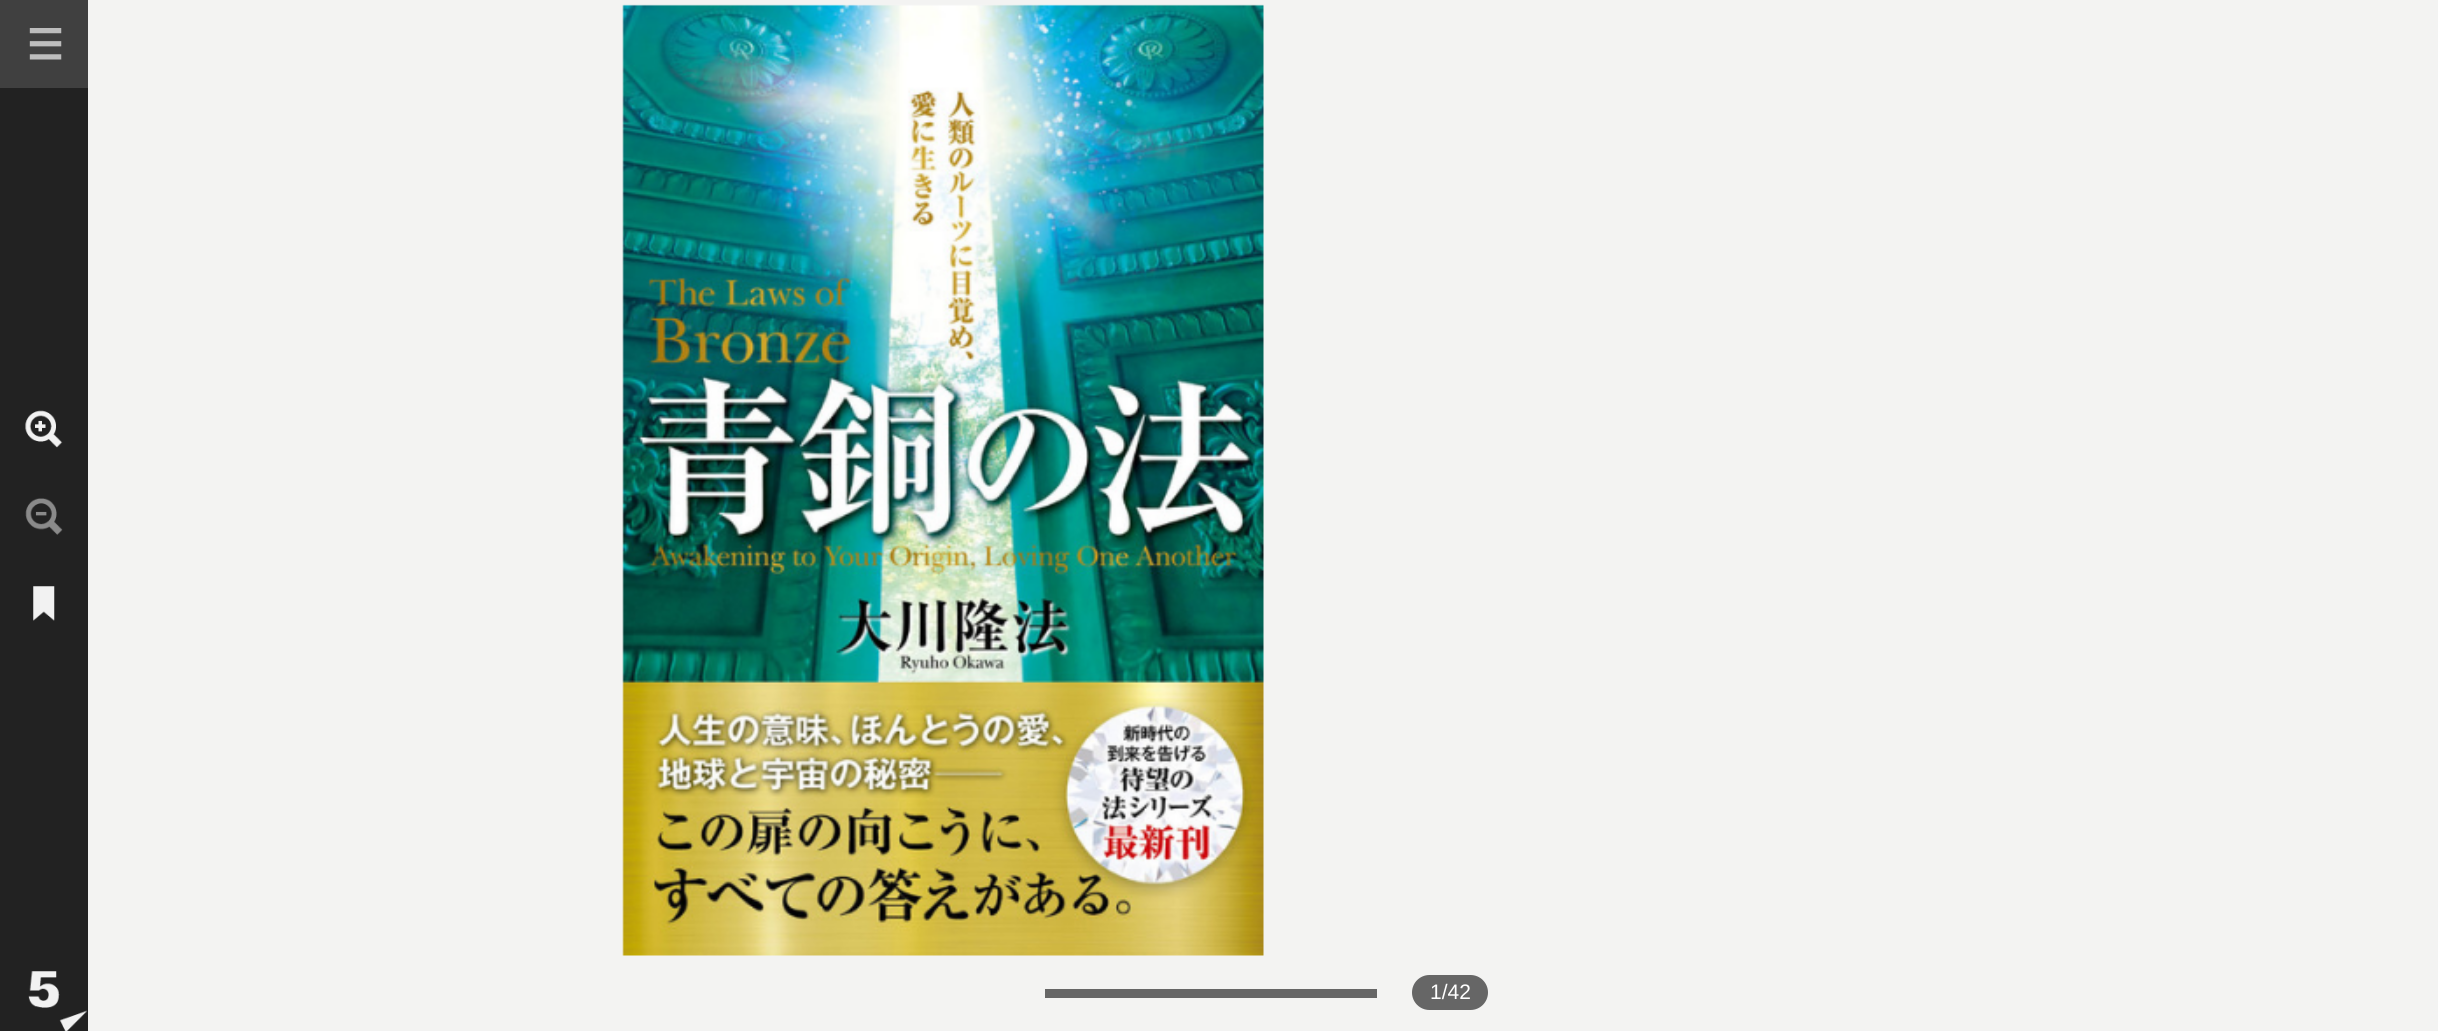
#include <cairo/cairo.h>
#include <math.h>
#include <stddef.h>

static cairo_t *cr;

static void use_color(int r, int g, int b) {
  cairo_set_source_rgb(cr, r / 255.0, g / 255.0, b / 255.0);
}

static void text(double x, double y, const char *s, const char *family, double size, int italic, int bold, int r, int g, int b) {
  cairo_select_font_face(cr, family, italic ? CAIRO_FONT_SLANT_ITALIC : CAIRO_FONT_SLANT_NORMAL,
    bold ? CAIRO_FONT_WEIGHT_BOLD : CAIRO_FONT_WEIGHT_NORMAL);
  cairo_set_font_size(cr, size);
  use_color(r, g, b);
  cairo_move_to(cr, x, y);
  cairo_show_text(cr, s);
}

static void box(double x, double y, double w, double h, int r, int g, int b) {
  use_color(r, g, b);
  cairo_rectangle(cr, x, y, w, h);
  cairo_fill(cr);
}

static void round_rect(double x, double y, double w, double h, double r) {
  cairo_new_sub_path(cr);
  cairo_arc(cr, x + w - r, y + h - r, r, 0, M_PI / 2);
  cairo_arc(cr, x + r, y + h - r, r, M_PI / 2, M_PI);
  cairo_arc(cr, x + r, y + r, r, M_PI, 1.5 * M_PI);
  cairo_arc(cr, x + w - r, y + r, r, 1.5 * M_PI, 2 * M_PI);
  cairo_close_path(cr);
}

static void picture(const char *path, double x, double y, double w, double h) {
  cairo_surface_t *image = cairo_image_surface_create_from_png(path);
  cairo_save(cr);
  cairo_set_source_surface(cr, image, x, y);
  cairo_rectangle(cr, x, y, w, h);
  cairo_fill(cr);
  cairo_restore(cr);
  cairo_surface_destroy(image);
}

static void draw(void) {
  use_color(243, 243, 242);
  cairo_paint(cr);
  box(0, 88, 88, 943, 34, 34, 34);
  box(0, 0, 88, 88, 64, 64, 64);
  picture("img_01.png", 29, 28, 33, 32);
  picture("img_02.png", 25, 410, 38, 38);
  picture("img_03.png", 25, 498, 38, 37);
  picture("img_04.png", 33, 586, 22, 35);
  picture("img_05.png", 28, 971, 59, 60);
  picture("img_06.png", 622, 4, 642, 952);
  box(1045, 989, 332, 9, 102, 102, 102);
  round_rect(1412, 975, 76, 35, 17.5);
  cairo_fill(cr);
  text(1430, 999, "1/42", "Liberation Sans", 21, 0, 0, 255, 255, 255);
}

int main(void) {
  cairo_surface_t *surface = cairo_image_surface_create(CAIRO_FORMAT_RGB24, 2438, 1031);
  cr = cairo_create(surface);
  cairo_font_options_t *options = cairo_font_options_create();
  cairo_font_options_set_hint_metrics(options, CAIRO_HINT_METRICS_OFF);
  cairo_font_options_set_hint_style(options, CAIRO_HINT_STYLE_NONE);
  cairo_set_font_options(cr, options);
  cairo_set_miter_limit(cr, 4);
  draw();
  cairo_surface_write_to_png(surface, "out.png");
  cairo_font_options_destroy(options);
  cairo_destroy(cr);
  cairo_surface_destroy(surface);
  return 0;
}
